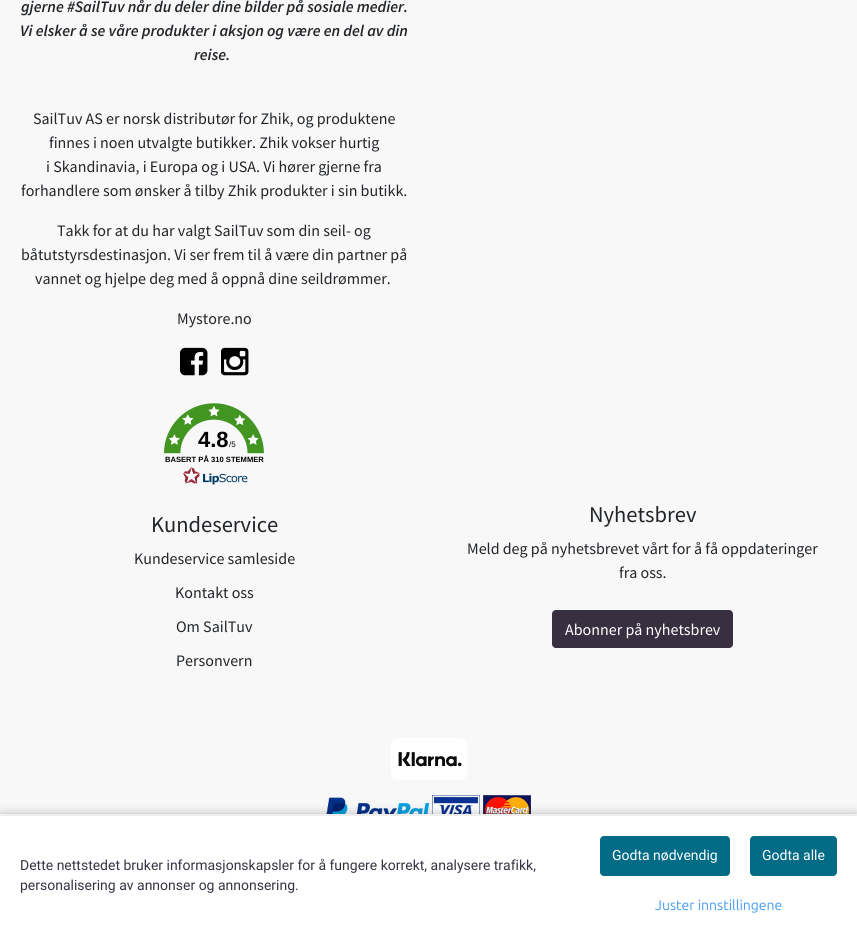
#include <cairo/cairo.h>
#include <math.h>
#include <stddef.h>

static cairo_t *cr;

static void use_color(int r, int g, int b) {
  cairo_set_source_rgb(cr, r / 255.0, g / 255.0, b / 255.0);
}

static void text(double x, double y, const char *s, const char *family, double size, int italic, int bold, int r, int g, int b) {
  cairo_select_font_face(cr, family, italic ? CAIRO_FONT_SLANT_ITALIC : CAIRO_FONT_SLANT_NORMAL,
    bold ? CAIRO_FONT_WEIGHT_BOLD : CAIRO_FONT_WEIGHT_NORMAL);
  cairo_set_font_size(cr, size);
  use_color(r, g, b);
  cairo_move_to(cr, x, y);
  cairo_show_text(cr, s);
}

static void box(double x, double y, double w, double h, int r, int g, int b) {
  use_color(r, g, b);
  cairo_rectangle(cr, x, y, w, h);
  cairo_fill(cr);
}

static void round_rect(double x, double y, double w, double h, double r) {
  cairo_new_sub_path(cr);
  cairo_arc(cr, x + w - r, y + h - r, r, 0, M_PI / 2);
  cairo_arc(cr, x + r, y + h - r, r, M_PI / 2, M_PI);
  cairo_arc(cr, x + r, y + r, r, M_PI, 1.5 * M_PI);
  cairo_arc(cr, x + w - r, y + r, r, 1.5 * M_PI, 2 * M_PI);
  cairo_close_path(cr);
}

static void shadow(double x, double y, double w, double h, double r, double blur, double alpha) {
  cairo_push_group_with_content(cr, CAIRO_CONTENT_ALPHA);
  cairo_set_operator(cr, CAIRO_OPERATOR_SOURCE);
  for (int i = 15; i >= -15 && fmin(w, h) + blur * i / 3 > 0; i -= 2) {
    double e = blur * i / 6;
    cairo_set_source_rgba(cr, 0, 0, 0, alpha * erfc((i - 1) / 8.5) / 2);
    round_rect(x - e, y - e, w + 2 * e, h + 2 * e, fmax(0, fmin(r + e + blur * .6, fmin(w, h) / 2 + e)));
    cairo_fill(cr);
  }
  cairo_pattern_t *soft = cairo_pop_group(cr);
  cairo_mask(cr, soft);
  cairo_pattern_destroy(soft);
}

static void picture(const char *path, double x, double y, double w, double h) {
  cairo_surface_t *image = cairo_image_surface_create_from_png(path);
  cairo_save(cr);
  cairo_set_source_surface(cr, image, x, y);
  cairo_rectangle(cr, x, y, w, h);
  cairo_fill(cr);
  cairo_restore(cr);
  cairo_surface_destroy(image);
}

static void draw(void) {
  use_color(248, 248, 248);
  cairo_paint(cr);
  picture("img_01.png", 180, 347, 28, 29);
  picture("img_02.png", 221, 347, 28, 29);
  picture("img_03.png", 164, 403, 100, 82);
  use_color(56, 48, 65);
  round_rect(552.5, 610.5, 180, 37, 3.5);
  cairo_fill_preserve(cr);
  cairo_set_line_width(cr, 1);
  cairo_stroke(cr);
  picture("img_04.png", 391, 738, 76, 42);
  picture("img_05.png", 326, 797, 103, 17);
  picture("img_06.png", 432, 795, 48, 19);
  picture("img_07.png", 483, 795, 48, 19);
  use_color(0, 0, 0);
  shadow(0, 814, 857, 122, 0, 5, 0.25);
  box(0, 816, 857, 120, 255, 255, 255);
  box(0, 814, 857, 2, 238, 238, 238);
  use_color(2, 107, 133);
  round_rect(600, 836, 130, 40, 4);
  cairo_fill(cr);
  round_rect(750, 836, 87, 40, 4);
  cairo_fill(cr);
  text(21, 12, "gjerne #SailTuv når du deler dine bilder på sosiale medier.", "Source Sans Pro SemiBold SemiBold", 16, 1, 0, 33, 37, 41);
  text(20, 36, "Vi elsker å se våre produkter i aksjon og være en del av din", "Source Sans Pro SemiBold SemiBold", 16, 1, 0, 33, 37, 41);
  text(194, 60, "reise.", "Source Sans Pro SemiBold SemiBold", 16, 1, 0, 33, 37, 41);
  text(33, 124, "SailTuv AS er norsk distributør for Zhik, og produktene", "Source Sans Pro", 16, 0, 0, 33, 37, 41);
  text(49, 148, "finnes i noen utvalgte butikker. Zhik vokser hurtig", "Source Sans Pro", 16, 0, 0, 33, 37, 41);
  text(46, 172, "i Skandinavia, i Europa og i USA. Vi hører gjerne fra", "Source Sans Pro", 16, 0, 0, 33, 37, 41);
  text(21, 196, "forhandlere som ønsker å tilby Zhik produkter i sin butikk.", "Source Sans Pro", 16, 0, 0, 33, 37, 41);
  text(57, 236, "Takk for at du har valgt SailTuv som din seil- og", "Source Sans Pro", 16, 0, 0, 33, 37, 41);
  text(21, 260, "båtutstyrsdestinasjon. Vi ser frem til å være din partner på", "Source Sans Pro", 16, 0, 0, 33, 37, 41);
  text(35, 284, "vannet og hjelpe deg med å oppnå dine seildrømmer.", "Source Sans Pro", 16, 0, 0, 33, 37, 41);
  text(177, 324, "Mystore.no", "Source Sans Pro", 16, 0, 0, 33, 37, 41);
  text(198, 447, "4.8", "Liberation Sans", 22, 0, 1, 0, 0, 0);
  text(229, 447, "/5", "Liberation Sans", 8, 0, 0, 0, 0, 0);
  text(165, 462, "BASERT PÅ 310 STEMMER", "Liberation Sans", 7.6, 0, 1, 0, 0, 0);
  text(151, 532, "Kundeservice", "Source Sans Pro", 22.5, 0, 0, 33, 37, 41);
  text(134, 564, "Kundeservice samleside", "Source Sans Pro", 16, 0, 0, 33, 37, 41);
  text(175, 598, "Kontakt oss", "Source Sans Pro", 16, 0, 0, 33, 37, 41);
  text(176, 632, "Om SailTuv", "Source Sans Pro", 16, 0, 0, 33, 37, 41);
  text(176, 666, "Personvern", "Source Sans Pro", 16, 0, 0, 33, 37, 41);
  text(589, 522, "Nyhetsbrev", "Source Sans Pro", 22.5, 0, 0, 33, 37, 41);
  text(467, 554, "Meld deg på nyhetsbrevet vårt for å få oppdateringer", "Source Sans Pro", 16, 0, 0, 33, 37, 41);
  text(619, 578, "fra oss.", "Source Sans Pro", 16, 0, 0, 33, 37, 41);
  text(565, 635, "Abonner på nyhetsbrev", "Source Sans Pro", 16, 0, 0, 255, 255, 255);
  text(20, 870, "Dette nettstedet bruker informasjonskapsler for å fungere korrekt, analysere trafikk,", "Roboto", 14, 0, 0, 54, 50, 65);
  text(20, 890, "personalisering av annonser og annonsering.", "Roboto", 14, 0, 0, 54, 50, 65);
  text(612, 860, "Godta nødvendig", "Roboto", 14, 0, 0, 255, 255, 255);
  text(762, 860, "Godta alle", "Roboto", 14, 0, 0, 255, 255, 255);
  text(655, 910, "Juster innstillingene", "Ubuntu", 14, 0, 0, 64, 154, 239);
}

int main(void) {
  cairo_surface_t *surface = cairo_image_surface_create(CAIRO_FORMAT_RGB24, 857, 936);
  cr = cairo_create(surface);
  cairo_font_options_t *options = cairo_font_options_create();
  cairo_font_options_set_hint_metrics(options, CAIRO_HINT_METRICS_OFF);
  cairo_font_options_set_hint_style(options, CAIRO_HINT_STYLE_NONE);
  cairo_set_font_options(cr, options);
  cairo_set_miter_limit(cr, 4);
  draw();
  cairo_surface_write_to_png(surface, "out.png");
  cairo_font_options_destroy(options);
  cairo_destroy(cr);
  cairo_surface_destroy(surface);
  return 0;
}
